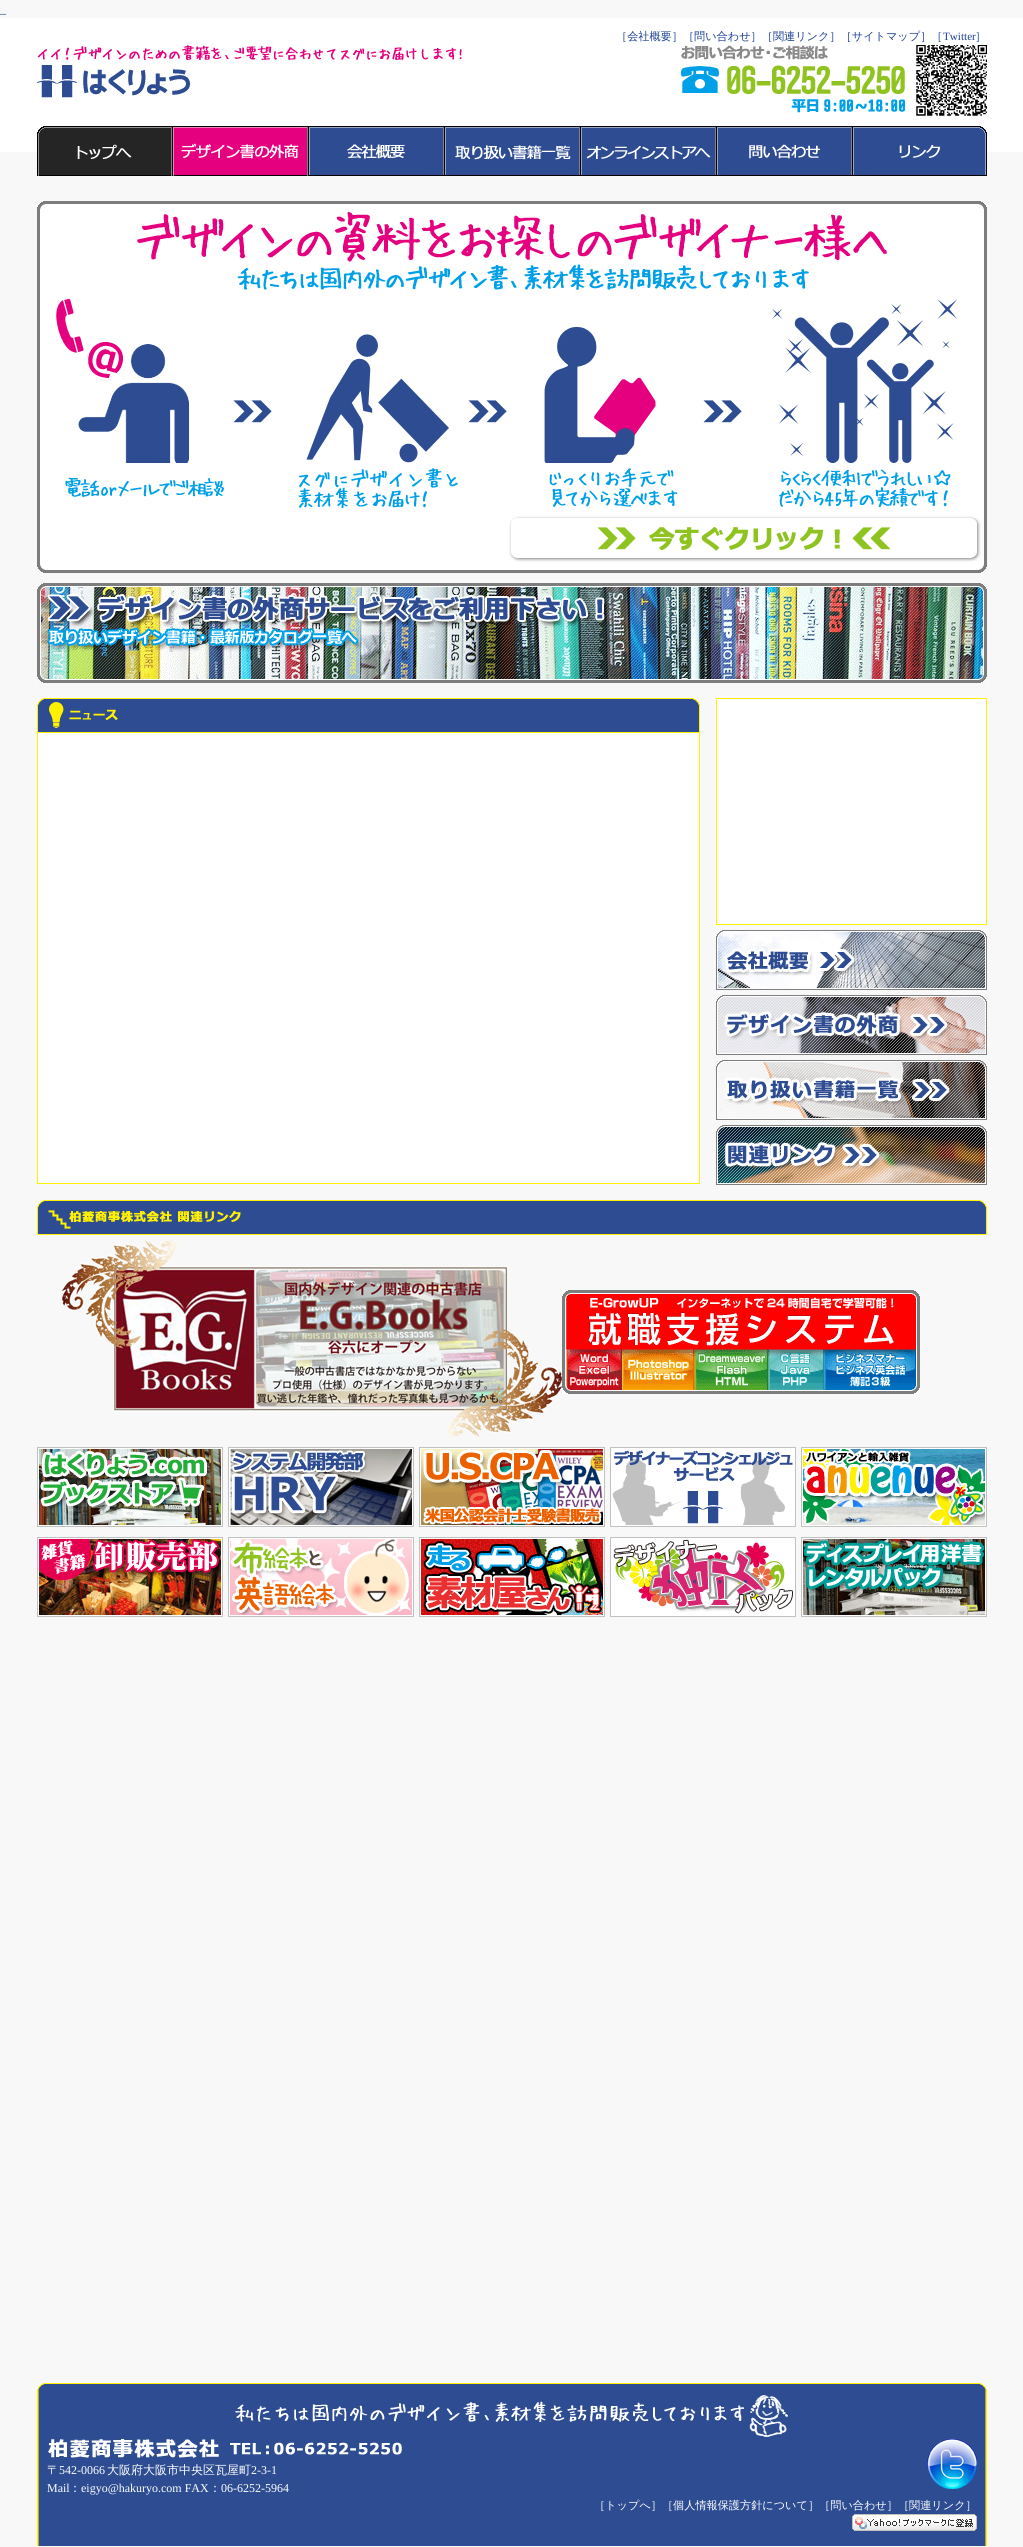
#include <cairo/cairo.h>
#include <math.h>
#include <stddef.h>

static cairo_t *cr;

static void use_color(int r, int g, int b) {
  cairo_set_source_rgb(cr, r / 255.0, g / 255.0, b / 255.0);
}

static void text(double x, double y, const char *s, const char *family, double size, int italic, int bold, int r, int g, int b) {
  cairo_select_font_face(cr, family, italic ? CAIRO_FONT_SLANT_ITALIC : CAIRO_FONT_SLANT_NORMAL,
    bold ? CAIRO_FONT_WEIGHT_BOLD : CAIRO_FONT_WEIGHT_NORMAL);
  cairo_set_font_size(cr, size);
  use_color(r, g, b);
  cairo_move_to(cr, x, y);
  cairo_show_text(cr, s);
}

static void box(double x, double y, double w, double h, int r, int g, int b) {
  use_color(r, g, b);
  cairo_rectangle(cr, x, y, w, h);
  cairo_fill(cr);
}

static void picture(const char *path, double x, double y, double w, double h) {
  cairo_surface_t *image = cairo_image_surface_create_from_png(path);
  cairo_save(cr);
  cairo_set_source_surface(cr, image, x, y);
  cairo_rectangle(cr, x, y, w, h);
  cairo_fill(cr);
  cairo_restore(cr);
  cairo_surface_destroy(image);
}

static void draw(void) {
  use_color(248, 248, 248);
  cairo_paint(cr);
  box(0, 18, 1023, 134, 255, 255, 255);
  picture("img_01.png", 37, 45, 425, 15);
  picture("img_02.png", 37, 65, 153, 33);
  picture("img_03.png", 681, 45, 147, 15);
  picture("img_04.png", 681, 65, 224, 29);
  picture("img_05.png", 791, 99, 114, 14);
  picture("img_06.png", 916, 45, 71, 71);
  picture("img_07.png", 37, 126, 136, 50);
  picture("img_08.png", 173, 126, 136, 50);
  picture("img_09.png", 309, 126, 136, 50);
  picture("img_10.png", 445, 126, 136, 50);
  picture("img_11.png", 581, 126, 136, 50);
  picture("img_12.png", 717, 126, 136, 50);
  picture("img_13.png", 853, 126, 134, 50);
  picture("img_14.png", 37, 201, 950, 372);
  picture("img_15.png", 516, 526, 454, 25);
  picture("img_16.png", 37, 583, 950, 100);
  picture("img_17.png", 37, 698, 663, 35);
  box(38, 733, 661, 450, 255, 255, 255);
  box(699, 733, 1, 451, 255, 241, 0);
  box(37, 1183, 663, 1, 255, 241, 0);
  box(37, 733, 1, 451, 255, 241, 0);
  use_color(255, 255, 255);
  cairo_rectangle(cr, 716.5, 698.5, 270, 226);
  cairo_fill_preserve(cr);
  use_color(255, 241, 0);
  cairo_set_line_width(cr, 1);
  cairo_stroke(cr);
  picture("img_18.png", 716, 930, 271, 60);
  picture("img_19.png", 716, 995, 271, 60);
  picture("img_20.png", 716, 1060, 271, 60);
  picture("img_21.png", 716, 1125, 271, 60);
  picture("img_22.png", 37, 1200, 950, 35);
  picture("img_23.png", 62, 1240, 500, 197);
  picture("img_24.png", 562, 1290, 358, 104);
  picture("img_25.png", 37, 1447, 186, 80);
  picture("img_26.png", 228, 1447, 186, 80);
  picture("img_27.png", 419, 1447, 186, 80);
  picture("img_28.png", 610, 1447, 186, 80);
  picture("img_29.png", 801, 1447, 186, 80);
  picture("img_30.png", 37, 1537, 186, 80);
  picture("img_31.png", 228, 1537, 186, 80);
  picture("img_32.png", 419, 1537, 186, 80);
  picture("img_33.png", 610, 1537, 186, 80);
  picture("img_34.png", 801, 1537, 186, 80);
  picture("img_35.png", 37, 2383, 950, 7);
  picture("img_36.png", 37, 2390, 950, 156);
  picture("img_37.png", 235, 2395, 553, 42);
  picture("img_38.png", 48, 2439, 171, 19);
  picture("img_39.png", 230, 2442, 172, 13);
  picture("img_40.png", 927, 2439, 50, 50);
  picture("img_41.png", 852, 2514, 125, 17);
  text(0, 13, "_", "Liberation Serif", 12, 0, 0, 26, 64, 150);
  text(616, 40, "［会社概要］［問い合わせ］［関連リンク］［サイトマップ］［", "WenQuanYi Zen Hei Medium", 11.15, 0, 0, 26, 64, 150);
  text(943, 40, "Twitter", "Liberation Serif", 11.15, 0, 0, 26, 64, 150);
  text(975, 40, "］", "WenQuanYi Zen Hei Medium", 11.15, 0, 0, 26, 64, 150);
  text(47, 2474, "〒", "WenQuanYi Zen Hei Medium", 12, 0, 0, 255, 255, 255);
  text(59, 2474, "542-0066", "Liberation Serif", 12, 0, 0, 255, 255, 255);
  text(107, 2474, "大阪府大阪市中央区瓦屋町", "WenQuanYi Zen Hei Medium", 12, 0, 0, 255, 255, 255);
  text(251, 2474, "2-3-1", "Liberation Serif", 12, 0, 0, 255, 255, 255);
  text(47, 2492, "Mail", "Liberation Serif", 12, 0, 0, 255, 255, 255);
  text(69, 2492, "：", "WenQuanYi Zen Hei Medium", 12, 0, 0, 255, 255, 255);
  text(81, 2492, "eigyo@hakuryo.com FAX", "Liberation Serif", 12, 0, 0, 255, 255, 255);
  text(209, 2492, "：", "WenQuanYi Zen Hei Medium", 12, 0, 0, 255, 255, 255);
  text(221, 2492, "06-6252-5964", "Liberation Serif", 12, 0, 0, 255, 255, 255);
  text(594, 2509, "［トップへ］［個人情報保護方針について］［問い合わせ］［関連リンク］", "WenQuanYi Zen Hei Medium", 11.15, 0, 0, 255, 255, 255);
}

int main(void) {
  cairo_surface_t *surface = cairo_image_surface_create(CAIRO_FORMAT_RGB24, 1023, 2547);
  cr = cairo_create(surface);
  cairo_font_options_t *options = cairo_font_options_create();
  cairo_font_options_set_hint_metrics(options, CAIRO_HINT_METRICS_OFF);
  cairo_font_options_set_hint_style(options, CAIRO_HINT_STYLE_NONE);
  cairo_set_font_options(cr, options);
  cairo_set_miter_limit(cr, 4);
  draw();
  cairo_surface_write_to_png(surface, "out.png");
  cairo_font_options_destroy(options);
  cairo_destroy(cr);
  cairo_surface_destroy(surface);
  return 0;
}
